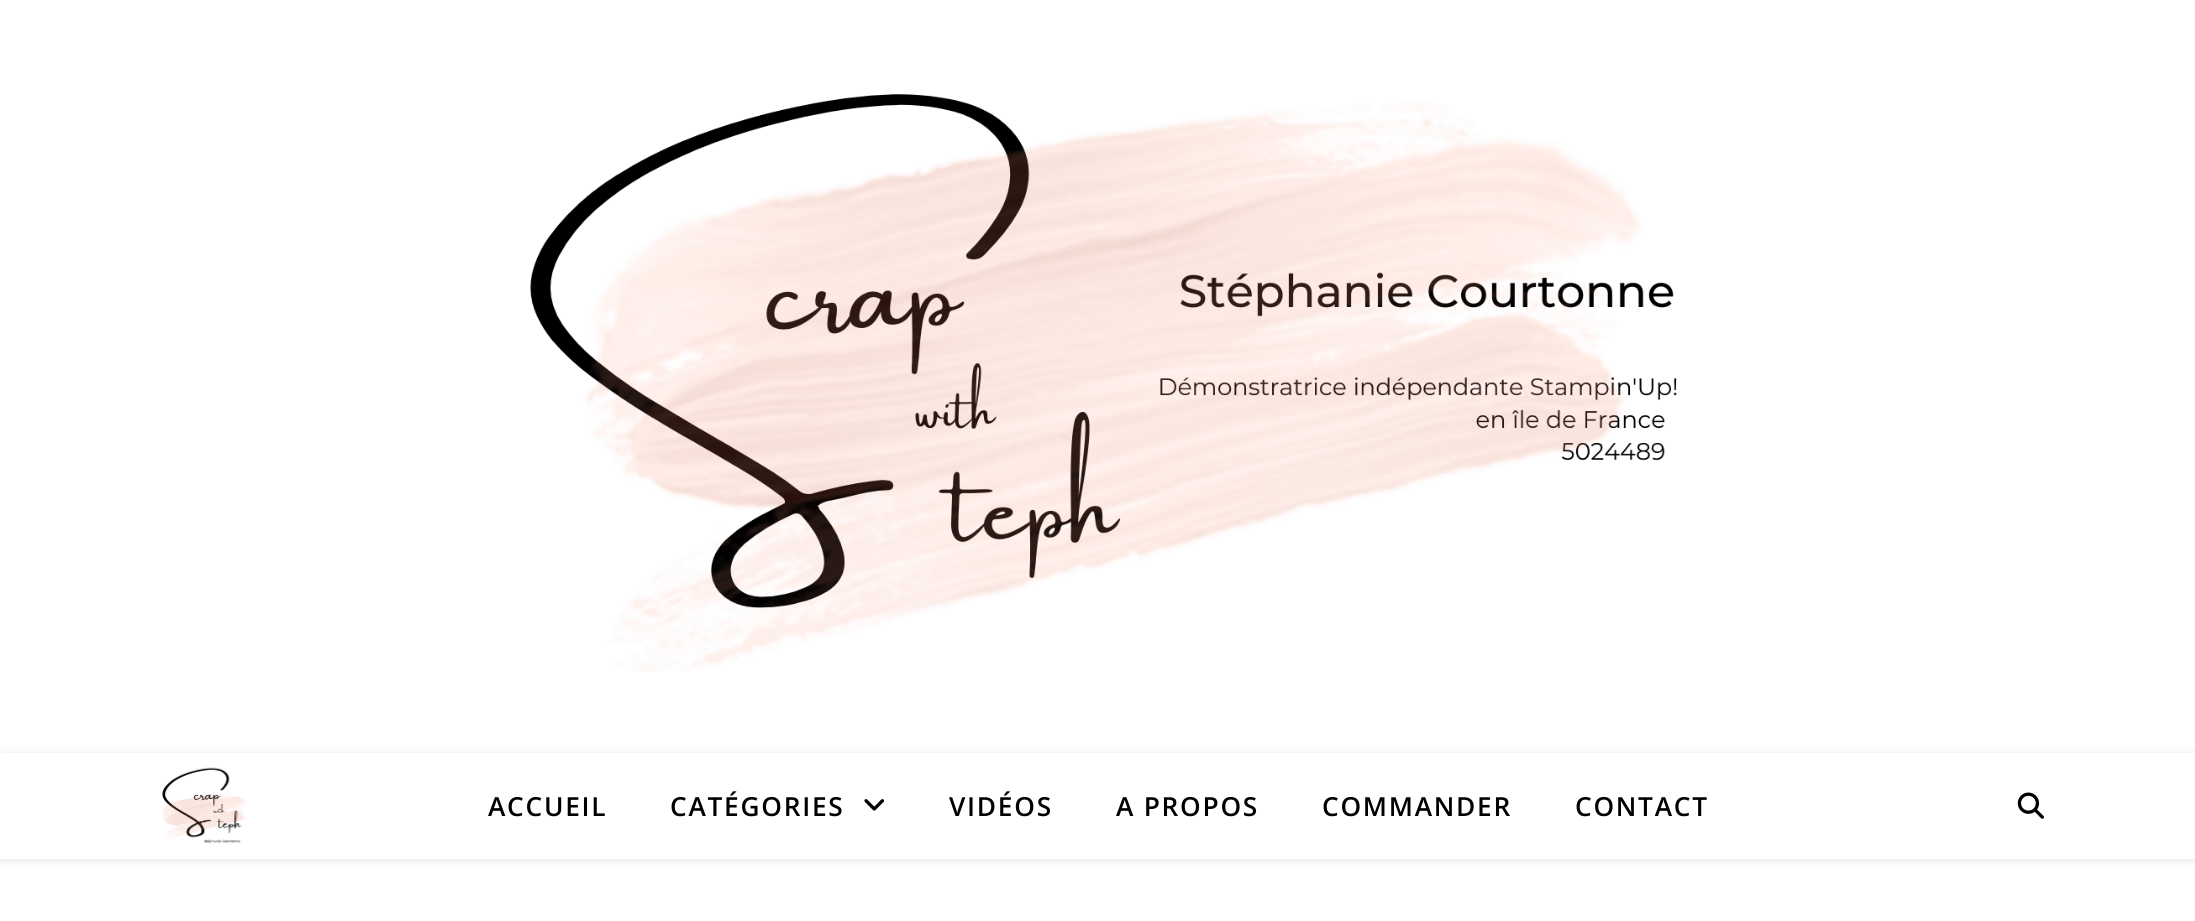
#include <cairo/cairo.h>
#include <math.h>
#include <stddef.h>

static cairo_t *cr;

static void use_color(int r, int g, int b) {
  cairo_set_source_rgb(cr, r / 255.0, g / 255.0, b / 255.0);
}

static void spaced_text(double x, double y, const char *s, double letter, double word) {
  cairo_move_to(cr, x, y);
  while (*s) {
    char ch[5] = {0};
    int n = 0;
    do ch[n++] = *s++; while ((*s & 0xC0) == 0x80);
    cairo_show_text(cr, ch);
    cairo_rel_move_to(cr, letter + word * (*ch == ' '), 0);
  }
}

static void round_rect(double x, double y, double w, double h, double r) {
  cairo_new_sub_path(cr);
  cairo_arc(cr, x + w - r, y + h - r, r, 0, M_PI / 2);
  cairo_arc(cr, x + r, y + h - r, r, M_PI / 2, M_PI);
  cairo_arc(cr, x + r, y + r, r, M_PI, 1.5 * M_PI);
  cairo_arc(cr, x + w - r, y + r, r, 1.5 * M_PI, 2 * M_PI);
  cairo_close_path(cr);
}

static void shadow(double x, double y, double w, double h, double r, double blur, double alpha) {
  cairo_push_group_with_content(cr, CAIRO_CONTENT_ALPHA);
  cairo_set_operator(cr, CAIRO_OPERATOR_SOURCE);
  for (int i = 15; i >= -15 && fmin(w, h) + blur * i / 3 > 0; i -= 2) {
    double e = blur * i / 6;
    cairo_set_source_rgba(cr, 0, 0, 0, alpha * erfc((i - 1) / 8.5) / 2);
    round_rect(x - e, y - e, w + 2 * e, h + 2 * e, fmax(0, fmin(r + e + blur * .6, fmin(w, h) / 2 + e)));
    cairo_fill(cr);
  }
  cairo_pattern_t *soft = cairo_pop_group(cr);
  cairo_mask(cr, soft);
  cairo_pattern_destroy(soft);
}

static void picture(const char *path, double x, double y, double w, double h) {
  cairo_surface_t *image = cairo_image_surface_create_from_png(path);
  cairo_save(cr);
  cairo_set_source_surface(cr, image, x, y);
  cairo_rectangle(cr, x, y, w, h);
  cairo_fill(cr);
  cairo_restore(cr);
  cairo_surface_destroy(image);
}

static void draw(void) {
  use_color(255, 255, 255);
  cairo_paint(cr);
  picture("img_01.png", 530, 94, 1147, 578);
  cairo_save(cr);
  cairo_set_fill_rule(cr, CAIRO_FILL_RULE_EVEN_ODD);
  cairo_new_path(cr);
  cairo_move_to(cr, 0, 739);
  cairo_line_to(cr, 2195, 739);
  cairo_line_to(cr, 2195, 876);
  cairo_line_to(cr, 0, 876);
  cairo_close_path(cr);
  cairo_move_to(cr, 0, 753);
  cairo_line_to(cr, 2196, 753);
  cairo_line_to(cr, 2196, 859);
  cairo_line_to(cr, 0, 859);
  cairo_close_path(cr);
  cairo_clip(cr);
  use_color(0, 0, 0);
  shadow(0, 754, 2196, 107, 0, 4.5, 0.1);
  cairo_restore(cr);
  picture("img_02.png", 162, 767, 84, 77);
  picture("img_03.png", 864, 799, 21, 12);
  picture("img_04.png", 2017, 792, 27, 27);
  cairo_select_font_face(cr, "Open Sans SemiBold", CAIRO_FONT_SLANT_NORMAL, CAIRO_FONT_WEIGHT_NORMAL);
  cairo_set_font_size(cr, 26.25);
  use_color(0, 0, 0);
  spaced_text(488, 816, "ACCUEIL", 1.75, 0);
  spaced_text(670, 816, "CATÉGORIES", 1.75, 0);
  spaced_text(949, 816, "VIDÉOS", 1.75, 0);
  spaced_text(1116, 816, "A PROPOS", 1.75, 0);
  spaced_text(1322, 816, "COMMANDER", 1.75, 0);
  spaced_text(1575, 816, "CONTACT", 1.75, 0);
}

int main(void) {
  cairo_surface_t *surface = cairo_image_surface_create(CAIRO_FORMAT_RGB24, 2195, 921);
  cr = cairo_create(surface);
  cairo_font_options_t *options = cairo_font_options_create();
  cairo_font_options_set_hint_metrics(options, CAIRO_HINT_METRICS_OFF);
  cairo_font_options_set_hint_style(options, CAIRO_HINT_STYLE_NONE);
  cairo_set_font_options(cr, options);
  cairo_set_miter_limit(cr, 4);
  draw();
  cairo_surface_write_to_png(surface, "out.png");
  cairo_font_options_destroy(options);
  cairo_destroy(cr);
  cairo_surface_destroy(surface);
  return 0;
}
